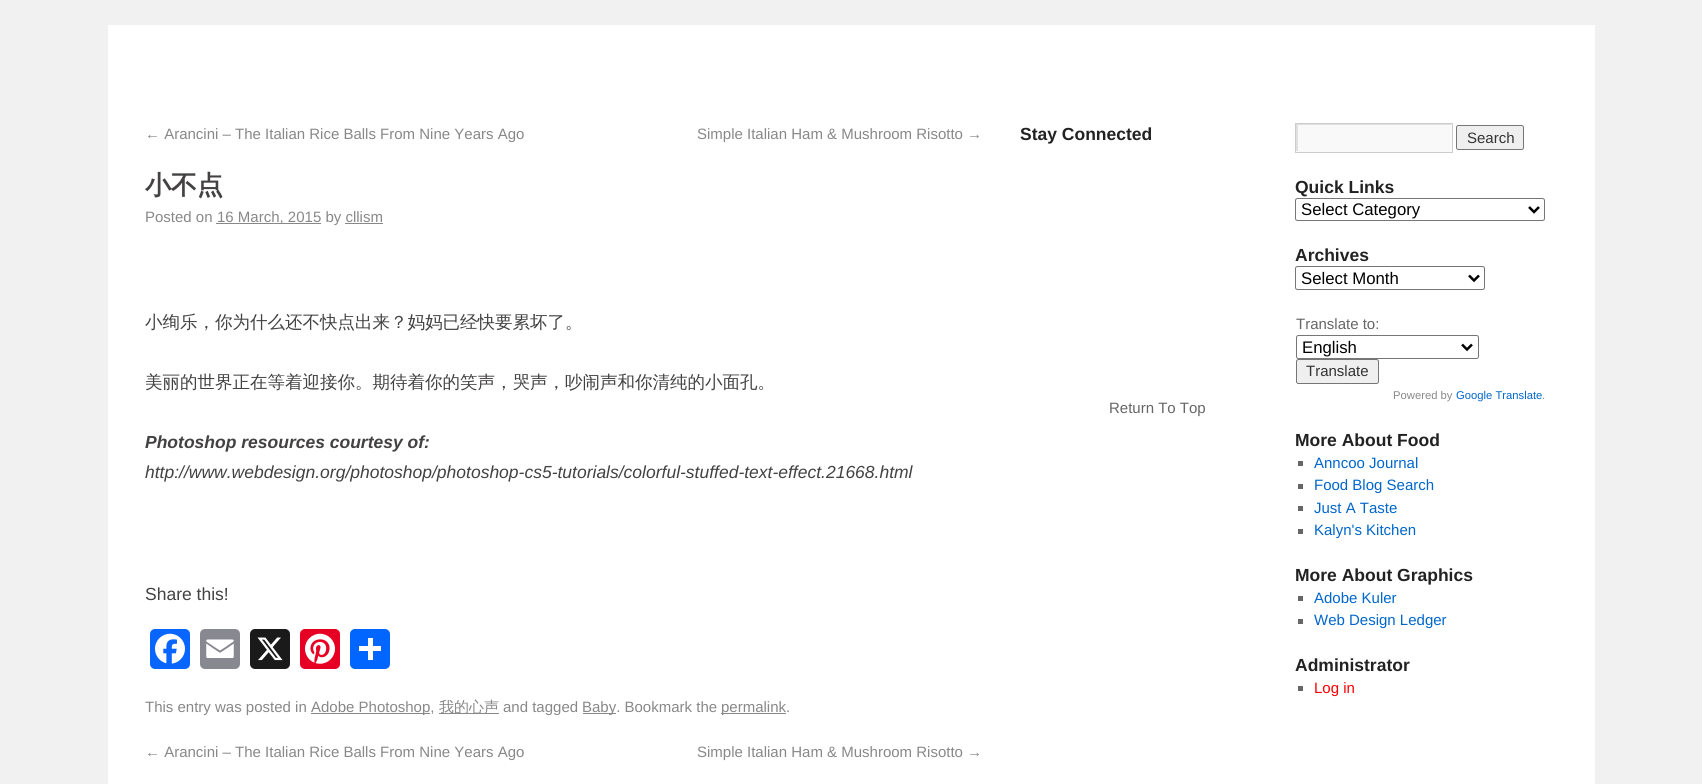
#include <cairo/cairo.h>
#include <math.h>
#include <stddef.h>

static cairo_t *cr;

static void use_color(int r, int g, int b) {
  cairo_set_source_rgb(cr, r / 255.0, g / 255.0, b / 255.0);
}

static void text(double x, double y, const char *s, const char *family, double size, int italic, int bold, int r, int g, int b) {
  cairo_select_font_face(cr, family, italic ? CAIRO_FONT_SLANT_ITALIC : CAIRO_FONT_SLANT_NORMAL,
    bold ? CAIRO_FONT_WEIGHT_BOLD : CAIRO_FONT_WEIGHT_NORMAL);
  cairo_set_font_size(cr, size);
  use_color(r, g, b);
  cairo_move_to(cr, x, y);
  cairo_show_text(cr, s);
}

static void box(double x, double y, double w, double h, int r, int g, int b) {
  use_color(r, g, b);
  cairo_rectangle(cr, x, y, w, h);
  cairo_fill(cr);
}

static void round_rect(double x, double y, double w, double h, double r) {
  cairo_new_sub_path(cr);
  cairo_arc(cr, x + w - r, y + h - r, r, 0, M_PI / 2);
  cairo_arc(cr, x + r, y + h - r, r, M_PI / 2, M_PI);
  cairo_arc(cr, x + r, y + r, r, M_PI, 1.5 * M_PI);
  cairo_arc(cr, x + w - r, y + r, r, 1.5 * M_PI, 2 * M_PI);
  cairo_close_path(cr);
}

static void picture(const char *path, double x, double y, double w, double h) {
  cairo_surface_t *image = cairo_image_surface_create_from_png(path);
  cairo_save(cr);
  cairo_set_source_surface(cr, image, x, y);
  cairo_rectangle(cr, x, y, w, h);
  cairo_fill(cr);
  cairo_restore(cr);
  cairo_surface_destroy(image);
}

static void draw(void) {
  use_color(241, 241, 241);
  cairo_paint(cr);
  box(108, 25, 1487, 759, 255, 255, 255);
  box(216, 223, 105, 1, 136, 136, 136);
  box(345, 223, 38, 1, 136, 136, 136);
  use_color(8, 102, 255);
  round_rect(150, 629, 40, 40, 5);
  cairo_fill(cr);
  picture("img_01.png", 155, 633, 30, 31);
  use_color(136, 137, 144);
  round_rect(200, 629, 40, 40, 5);
  cairo_fill(cr);
  picture("img_02.png", 206, 639, 28, 19);
  use_color(26, 26, 26);
  round_rect(250, 629, 40, 40, 5);
  cairo_fill(cr);
  picture("img_03.png", 257, 637, 26, 24);
  use_color(230, 0, 35);
  round_rect(300, 629, 40, 40, 5);
  cairo_fill(cr);
  picture("img_04.png", 305, 633, 30, 31);
  use_color(1, 102, 255);
  round_rect(350, 629, 40, 40, 5);
  cairo_fill(cr);
  box(368, 638, 5, 22, 255, 255, 255);
  box(359, 646, 22, 5, 255, 255, 255);
  box(311, 713, 119, 1, 136, 136, 136);
  box(439, 713, 60, 1, 136, 136, 136);
  box(583, 713, 33, 1, 136, 136, 136);
  box(721, 713, 65, 1, 136, 136, 136);
  box(1296, 124, 156, 28, 249, 249, 249);
  cairo_save(cr);
  cairo_rectangle(cr, 1296, 124, 155, 27);
  cairo_clip(cr);
  use_color(224, 224, 224);
  cairo_set_fill_rule(cr, CAIRO_FILL_RULE_EVEN_ODD);
  cairo_new_path(cr);
  cairo_move_to(cr, 1172, 0);
  cairo_line_to(cr, 1575, 0);
  cairo_line_to(cr, 1575, 275);
  cairo_line_to(cr, 1172, 275);
  cairo_close_path(cr);
  cairo_move_to(cr, 1298, 125);
  cairo_line_to(cr, 1452, 125);
  cairo_line_to(cr, 1452, 152);
  cairo_line_to(cr, 1298, 152);
  cairo_close_path(cr);
  cairo_fill(cr);
  cairo_restore(cr);
  cairo_rectangle(cr, 1295.5, 123.5, 157, 29);
  use_color(204, 204, 204);
  cairo_set_line_width(cr, 1);
  cairo_stroke(cr);
  use_color(239, 239, 239);
  round_rect(1456.5, 125.5, 67, 24, 2);
  cairo_fill_preserve(cr);
  use_color(118, 118, 118);
  cairo_stroke(cr);
  round_rect(1295.5, 198.5, 249, 22, 2);
  cairo_stroke(cr);
  cairo_new_path(cr);
  cairo_move_to(cr, 1529, 207);
  cairo_line_to(cr, 1534, 212);
  cairo_line_to(cr, 1539, 207);
  use_color(0, 0, 0);
  cairo_set_line_width(cr, 2.5);
  cairo_stroke(cr);
  round_rect(1295.5, 266.5, 189, 23, 2);
  use_color(118, 118, 118);
  cairo_set_line_width(cr, 1);
  cairo_stroke(cr);
  cairo_new_path(cr);
  cairo_move_to(cr, 1469, 275.5);
  cairo_line_to(cr, 1474, 280.5);
  cairo_line_to(cr, 1479, 275.5);
  use_color(0, 0, 0);
  cairo_set_line_width(cr, 2.5);
  cairo_stroke(cr);
  round_rect(1296.5, 335.5, 182, 23, 2);
  use_color(118, 118, 118);
  cairo_set_line_width(cr, 1);
  cairo_stroke(cr);
  cairo_new_path(cr);
  cairo_move_to(cr, 1462, 344.5);
  cairo_line_to(cr, 1467, 349.5);
  cairo_line_to(cr, 1472, 344.5);
  use_color(0, 0, 0);
  cairo_set_line_width(cr, 2.5);
  cairo_stroke(cr);
  use_color(239, 239, 239);
  round_rect(1296.5, 359.5, 82, 24, 2);
  cairo_fill_preserve(cr);
  use_color(118, 118, 118);
  cairo_set_line_width(cr, 1);
  cairo_stroke(cr);
  box(1298, 461, 5, 5, 102, 102, 102);
  box(1298, 484, 5, 5, 102, 102, 102);
  box(1298, 506, 5, 5, 102, 102, 102);
  box(1298, 529, 5, 5, 102, 102, 102);
  box(1298, 596, 5, 5, 102, 102, 102);
  box(1298, 619, 5, 5, 102, 102, 102);
  box(1298, 686, 5, 5, 102, 102, 102);
  text(145, 139, "← Arancini – The Italian Rice Balls From Nine Years Ago", "Liberation Sans", 15, 0, 0, 136, 136, 136);
  text(697, 139, "Simple Italian Ham & Mushroom Risotto →", "Liberation Sans", 15, 0, 0, 136, 136, 136);
  text(145, 194, "小不点", "WenQuanYi Zen Hei", 26, 0, 1, 67, 65, 66);
  text(145, 222, "Posted on", "Liberation Sans", 15, 0, 0, 136, 136, 136);
  text(217, 222, "16 March, 2015 by cllism", "Liberation Sans", 15, 0, 0, 136, 136, 136);
  text(145, 328, "小绚乐，你为什么还不快点出来？妈妈已经快要累坏了。", "WenQuanYi Zen Hei Medium", 17.5, 0, 0, 67, 65, 66);
  text(145, 388, "美丽的世界正在等着迎接你。期待着你的笑声，哭声，吵闹声和你清纯的小面孔。", "WenQuanYi Zen Hei Medium", 17.5, 0, 0, 67, 65, 66);
  text(145, 448, "Photoshop resources courtesy of:", "Liberation Sans", 17.5, 1, 1, 67, 65, 66);
  text(145, 478, "http://www.webdesign.org/photoshop/photoshop-cs5-tutorials/colorful-stuffed-text-effect.21668.html", "Liberation Sans", 17.5, 1, 0, 67, 65, 66);
  text(145, 600, "Share this!", "Liberation Sans", 17.5, 0, 0, 67, 65, 66);
  text(145, 712, "This entry was posted in", "Liberation Sans", 15, 0, 0, 136, 136, 136);
  text(311, 712, "Adobe Photoshop,", "Liberation Sans", 15, 0, 0, 136, 136, 136);
  text(439, 712, "我的心声", "WenQuanYi Zen Hei Medium", 15, 0, 0, 136, 136, 136);
  text(503, 712, "and tagged", "Liberation Sans", 15, 0, 0, 136, 136, 136);
  text(582, 712, "Baby. Bookmark the", "Liberation Sans", 15, 0, 0, 136, 136, 136);
  text(721, 712, "permalink.", "Liberation Sans", 15, 0, 0, 136, 136, 136);
  text(145, 757, "← Arancini – The Italian Rice Balls From Nine Years Ago", "Liberation Sans", 15, 0, 0, 136, 136, 136);
  text(697, 757, "Simple Italian Ham & Mushroom Risotto →", "Liberation Sans", 15, 0, 0, 136, 136, 136);
  text(1020, 140, "Stay Connected", "Liberation Sans", 17.5, 0, 1, 34, 34, 34);
  text(1109, 413, "Return To Top", "Liberation Sans", 15, 0, 0, 102, 102, 102);
  text(1467, 143, "Search", "Liberation Sans", 15, 0, 0, 51, 51, 51);
  text(1295, 193, "Quick Links", "Liberation Sans", 17.5, 0, 1, 34, 34, 34);
  text(1301, 215, "Select Category", "Liberation Sans", 16.75, 0, 0, 0, 0, 0);
  text(1295, 261, "Archives", "Liberation Sans", 17.5, 0, 1, 34, 34, 34);
  text(1301, 284, "Select Month", "Liberation Sans", 16.75, 0, 0, 0, 0, 0);
  text(1296, 329, "Translate to:", "Liberation Sans", 15, 0, 0, 102, 102, 102);
  text(1302, 353, "English", "Liberation Sans", 16.75, 0, 0, 0, 0, 0);
  text(1306, 376, "Translate", "Liberation Sans", 15, 0, 0, 51, 51, 51);
  text(1393, 399, "Powered by", "Liberation Sans", 11.25, 0, 0, 136, 136, 136);
  text(1456, 399, "Google Translate", "Liberation Sans", 11.25, 0, 0, 0, 102, 204);
  text(1542, 399, ".", "Liberation Sans", 11.25, 0, 0, 136, 136, 136);
  text(1295, 446, "More About Food", "Liberation Sans", 17.5, 0, 1, 34, 34, 34);
  text(1314, 468, "Anncoo Journal", "Liberation Sans", 15, 0, 0, 0, 102, 204);
  text(1314, 490, "Food Blog Search", "Liberation Sans", 15, 0, 0, 0, 102, 204);
  text(1314, 513, "Just A Taste", "Liberation Sans", 15, 0, 0, 0, 102, 204);
  text(1314, 535, "Kalyn's Kitchen", "Liberation Sans", 15, 0, 0, 0, 102, 204);
  text(1295, 581, "More About Graphics", "Liberation Sans", 17.5, 0, 1, 34, 34, 34);
  text(1314, 603, "Adobe Kuler", "Liberation Sans", 15, 0, 0, 0, 102, 204);
  text(1314, 625, "Web Design Ledger", "Liberation Sans", 15, 0, 0, 0, 102, 204);
  text(1295, 671, "Administrator", "Liberation Sans", 17.5, 0, 1, 34, 34, 34);
  text(1314, 693, "Log in", "Liberation Sans", 15, 0, 0, 255, 0, 0);
}

int main(void) {
  cairo_surface_t *surface = cairo_image_surface_create(CAIRO_FORMAT_RGB24, 1702, 784);
  cr = cairo_create(surface);
  cairo_font_options_t *options = cairo_font_options_create();
  cairo_font_options_set_hint_metrics(options, CAIRO_HINT_METRICS_OFF);
  cairo_font_options_set_hint_style(options, CAIRO_HINT_STYLE_NONE);
  cairo_set_font_options(cr, options);
  cairo_set_miter_limit(cr, 4);
  draw();
  cairo_surface_write_to_png(surface, "out.png");
  cairo_font_options_destroy(options);
  cairo_destroy(cr);
  cairo_surface_destroy(surface);
  return 0;
}
